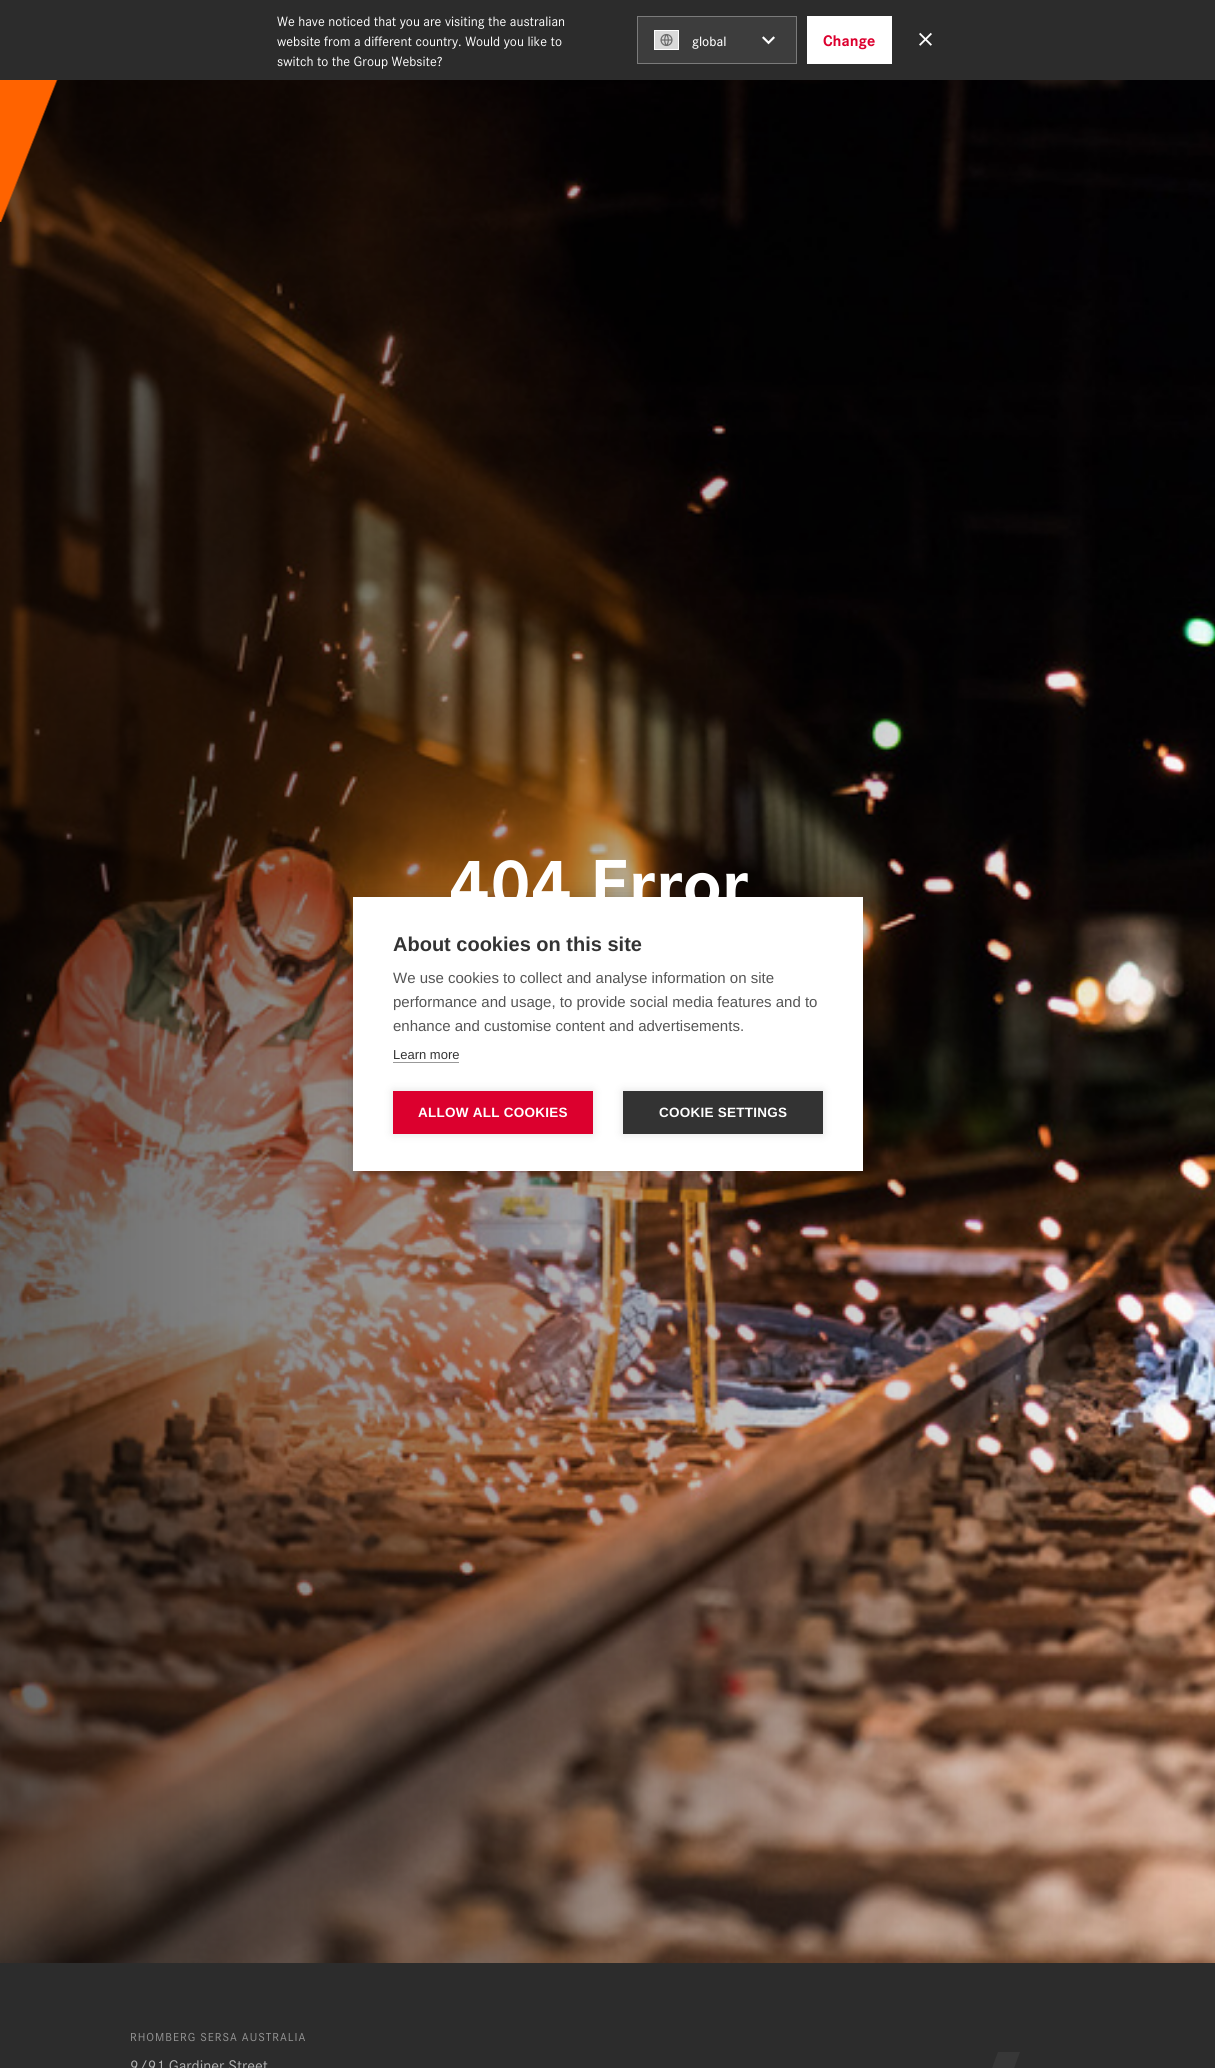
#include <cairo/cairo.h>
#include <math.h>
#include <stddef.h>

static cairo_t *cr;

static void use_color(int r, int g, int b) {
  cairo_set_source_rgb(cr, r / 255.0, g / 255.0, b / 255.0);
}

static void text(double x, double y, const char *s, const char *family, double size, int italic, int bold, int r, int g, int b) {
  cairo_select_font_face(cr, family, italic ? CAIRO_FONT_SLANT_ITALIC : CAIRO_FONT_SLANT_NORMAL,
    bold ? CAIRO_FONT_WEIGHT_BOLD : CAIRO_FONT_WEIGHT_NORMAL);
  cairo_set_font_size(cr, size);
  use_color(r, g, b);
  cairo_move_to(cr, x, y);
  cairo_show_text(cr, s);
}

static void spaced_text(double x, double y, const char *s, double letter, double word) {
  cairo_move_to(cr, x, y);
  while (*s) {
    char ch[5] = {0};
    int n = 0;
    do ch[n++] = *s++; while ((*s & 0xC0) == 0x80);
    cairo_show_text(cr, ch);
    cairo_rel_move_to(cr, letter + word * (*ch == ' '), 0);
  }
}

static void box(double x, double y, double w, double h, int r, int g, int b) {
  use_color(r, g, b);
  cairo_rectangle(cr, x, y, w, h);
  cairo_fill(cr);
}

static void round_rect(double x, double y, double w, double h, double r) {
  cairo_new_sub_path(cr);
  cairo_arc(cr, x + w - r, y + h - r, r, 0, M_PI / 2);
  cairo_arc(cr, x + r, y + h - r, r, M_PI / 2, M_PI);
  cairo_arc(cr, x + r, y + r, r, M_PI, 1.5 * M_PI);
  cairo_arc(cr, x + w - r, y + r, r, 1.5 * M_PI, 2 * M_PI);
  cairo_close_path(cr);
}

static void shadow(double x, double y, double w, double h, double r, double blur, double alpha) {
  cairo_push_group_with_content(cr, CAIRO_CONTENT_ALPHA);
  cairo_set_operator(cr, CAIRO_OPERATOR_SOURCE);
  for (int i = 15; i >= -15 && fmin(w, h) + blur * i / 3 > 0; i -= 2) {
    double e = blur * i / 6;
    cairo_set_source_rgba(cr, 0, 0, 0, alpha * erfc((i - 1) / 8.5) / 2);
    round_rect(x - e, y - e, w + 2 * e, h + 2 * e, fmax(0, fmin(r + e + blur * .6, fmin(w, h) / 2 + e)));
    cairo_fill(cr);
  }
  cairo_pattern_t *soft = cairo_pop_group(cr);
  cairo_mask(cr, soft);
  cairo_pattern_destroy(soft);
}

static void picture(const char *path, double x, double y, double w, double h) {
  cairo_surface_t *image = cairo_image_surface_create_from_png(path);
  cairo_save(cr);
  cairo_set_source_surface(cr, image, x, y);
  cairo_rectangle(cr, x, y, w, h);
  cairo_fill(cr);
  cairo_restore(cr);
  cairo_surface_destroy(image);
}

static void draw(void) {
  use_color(255, 255, 255);
  cairo_paint(cr);
  box(0, 0, 1215, 80, 44, 44, 44);
  use_color(61, 61, 61);
  cairo_rectangle(cr, 637.5, 16.5, 159, 47);
  cairo_fill_preserve(cr);
  use_color(123, 123, 123);
  cairo_set_line_width(cr, 1);
  cairo_stroke(cr);
  picture("img_01.png", 654, 30, 25, 20);
  picture("img_02.png", 762, 36, 13, 9);
  box(807, 16, 85, 48, 255, 255, 255);
  picture("img_03.png", 919, 32, 13, 14);
  picture("img_04.png", 0, 80, 1215, 1883);
  use_color(0, 0, 0);
  shadow(353, 897, 510, 274, 0, 10, 0.2);
  box(353, 897, 510, 274, 255, 255, 255);
  box(393, 1062, 66, 1, 153, 153, 153);
  use_color(0, 0, 0);
  shadow(393, 1091, 200, 43, 0, 5, 0.12);
  box(393, 1091, 200, 43, 220, 0, 46);
  use_color(0, 0, 0);
  shadow(623, 1091, 200, 43, 0, 5, 0.12);
  box(623, 1091, 200, 43, 51, 51, 51);
  box(0, 1963, 1215, 105, 44, 44, 44);
  use_color(55, 55, 55);
  cairo_set_fill_rule(cr, CAIRO_FILL_RULE_EVEN_ODD);
  cairo_new_path(cr);
  cairo_move_to(cr, 998, 2052);
  cairo_line_to(cr, 1020, 2052);
  cairo_line_to(cr, 977, 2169);
  cairo_line_to(cr, 955, 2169);
  cairo_close_path(cr);
  cairo_move_to(cr, 946, 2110);
  cairo_line_to(cr, 968, 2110);
  cairo_line_to(cr, 922, 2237);
  cairo_line_to(cr, 900, 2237);
  cairo_close_path(cr);
  cairo_fill(cr);
  text(277, 26, "We have noticed that you are visiting the australian", "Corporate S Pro", 14, 0, 0, 255, 255, 255);
  text(277, 46, "website from a different country. Would you like to", "Corporate S Pro", 14, 0, 0, 255, 255, 255);
  text(277, 66, "switch to the Group Website?", "Corporate S Pro", 14, 0, 0, 255, 255, 255);
  text(692, 46, "global", "Corporate S Pro Medium", 14, 0, 0, 255, 255, 255);
  text(823, 46, "Change", "Corporate S Pro", 16, 0, 1, 220, 0, 46);
  text(449, 908, "404 Error", "Corporate S Pro", 72, 0, 1, 255, 255, 255);
  text(393, 951, "About cookies on this site", "Liberation Sans", 20, 0, 1, 51, 51, 51);
  text(393, 983, "We use cookies to collect and analyse information on site", "Liberation Sans", 15, 0, 0, 85, 85, 85);
  text(393, 1007, "performance and usage, to provide social media features and to", "Liberation Sans", 15, 0, 0, 85, 85, 85);
  text(393, 1031, "enhance and customise content and advertisements.", "Liberation Sans", 15, 0, 0, 85, 85, 85);
  text(393, 1059, "Learn more", "Liberation Sans", 13, 0, 0, 51, 51, 51);
  cairo_select_font_face(cr, "Liberation Sans", CAIRO_FONT_SLANT_NORMAL, CAIRO_FONT_WEIGHT_BOLD);
  cairo_set_font_size(cr, 13.5);
  use_color(255, 255, 255);
  spaced_text(418, 1117, "ALLOW ALL COOKIES", 0.25, 0);
  spaced_text(659, 1117, "COOKIE SETTINGS", 0.25, 0);
  cairo_select_font_face(cr, "Corporate S Pro", CAIRO_FONT_SLANT_NORMAL, CAIRO_FONT_WEIGHT_NORMAL);
  cairo_set_font_size(cr, 12);
  use_color(149, 149, 149);
  spaced_text(130, 2041, "RHOMBERG SERSA AUSTRALIA", 1, 0);
  text(130, 2071, "9/91 Gardiner Street", "Corporate S Pro", 16, 0, 0, 181, 181, 181);
}

int main(void) {
  cairo_surface_t *surface = cairo_image_surface_create(CAIRO_FORMAT_RGB24, 1215, 2068);
  cr = cairo_create(surface);
  cairo_font_options_t *options = cairo_font_options_create();
  cairo_font_options_set_hint_metrics(options, CAIRO_HINT_METRICS_OFF);
  cairo_font_options_set_hint_style(options, CAIRO_HINT_STYLE_NONE);
  cairo_set_font_options(cr, options);
  cairo_set_miter_limit(cr, 4);
  draw();
  cairo_surface_write_to_png(surface, "out.png");
  cairo_font_options_destroy(options);
  cairo_destroy(cr);
  cairo_surface_destroy(surface);
  return 0;
}
